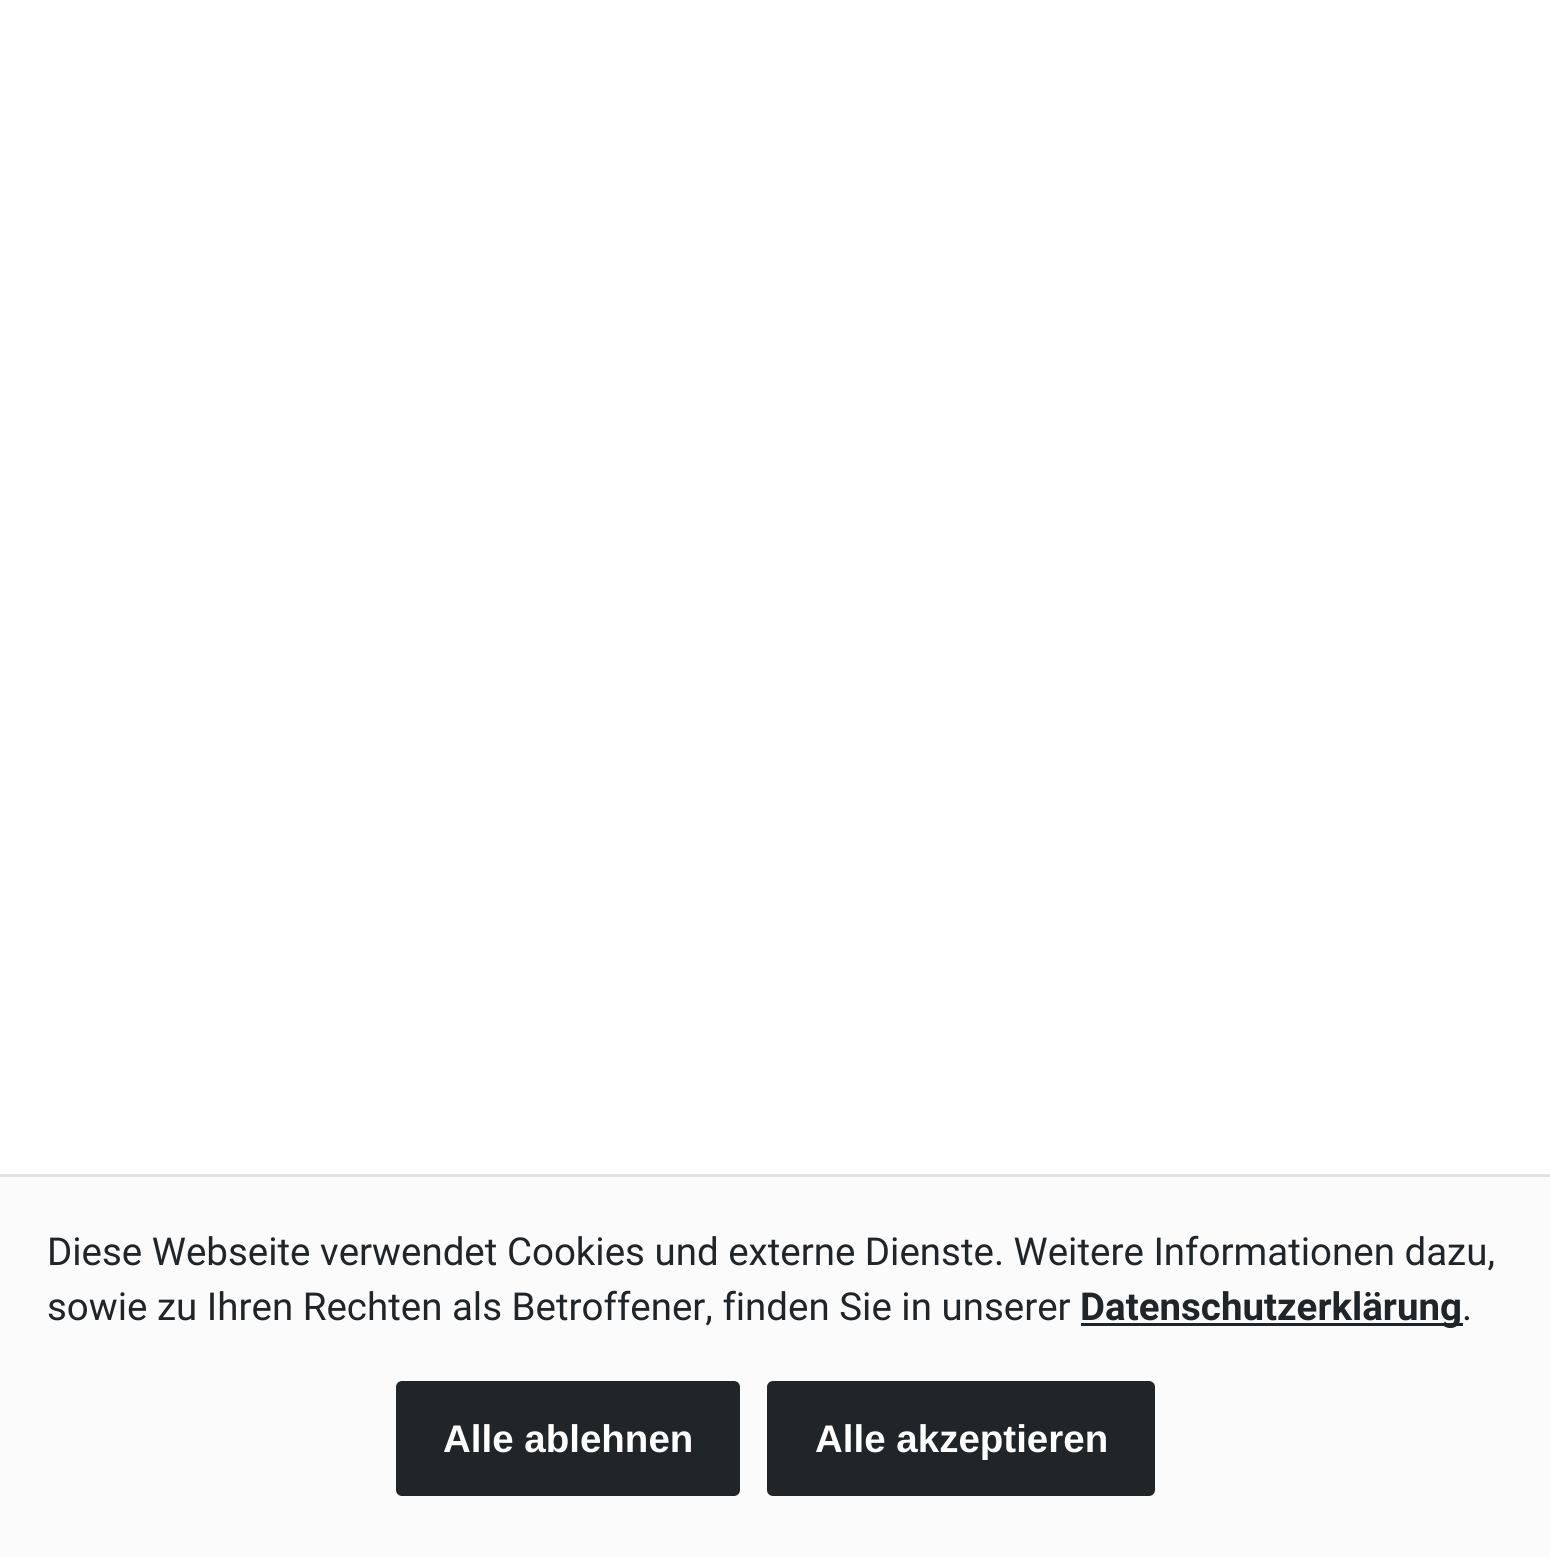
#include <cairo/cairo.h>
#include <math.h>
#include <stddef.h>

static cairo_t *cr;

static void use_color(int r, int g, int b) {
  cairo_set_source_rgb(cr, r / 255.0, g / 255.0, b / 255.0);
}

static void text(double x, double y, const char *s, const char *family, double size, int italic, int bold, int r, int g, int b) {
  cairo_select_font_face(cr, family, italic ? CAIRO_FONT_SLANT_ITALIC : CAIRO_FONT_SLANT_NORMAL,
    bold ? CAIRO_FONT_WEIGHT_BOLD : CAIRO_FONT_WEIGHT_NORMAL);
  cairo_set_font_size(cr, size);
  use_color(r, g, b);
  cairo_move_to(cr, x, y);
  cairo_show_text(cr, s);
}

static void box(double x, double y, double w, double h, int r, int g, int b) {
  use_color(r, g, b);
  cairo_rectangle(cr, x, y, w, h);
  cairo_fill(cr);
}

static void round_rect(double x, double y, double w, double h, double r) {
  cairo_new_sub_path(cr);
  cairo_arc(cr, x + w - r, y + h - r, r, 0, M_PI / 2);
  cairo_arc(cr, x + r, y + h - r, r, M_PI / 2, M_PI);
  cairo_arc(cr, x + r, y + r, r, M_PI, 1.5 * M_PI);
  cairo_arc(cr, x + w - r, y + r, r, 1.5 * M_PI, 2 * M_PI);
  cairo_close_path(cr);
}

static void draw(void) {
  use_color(255, 255, 255);
  cairo_paint(cr);
  box(0, 1177, 1550, 380, 251, 251, 251);
  box(0, 1174, 1550, 3, 226, 226, 226);
  box(1081, 1323, 382, 3, 31, 37, 41);
  round_rect(397.5, 1382.5, 341, 112, 4.5);
  cairo_fill_preserve(cr);
  cairo_set_line_width(cr, 3);
  cairo_stroke(cr);
  round_rect(768.5, 1382.5, 385, 112, 4.5);
  cairo_fill_preserve(cr);
  cairo_stroke(cr);
  text(47, 1265, "Diese Webseite verwendet Cookies und externe Dienste. Weitere Informationen dazu,", "Roboto", 38.5, 0, 0, 31, 37, 41);
  text(47, 1320, "sowie zu Ihren Rechten als Betroffener, finden Sie in unserer", "Roboto", 38.5, 0, 0, 31, 37, 41);
  text(1080, 1320, "Datenschutzerklärung", "Roboto", 38.5, 0, 1, 31, 37, 41);
  text(1462, 1320, ".", "Roboto", 38.5, 0, 0, 31, 37, 41);
  text(443, 1452, "Alle ablehnen", "Liberation Sans", 38.5, 0, 1, 255, 255, 255);
  text(815, 1452, "Alle akzeptieren", "Liberation Sans", 38.5, 0, 1, 255, 255, 255);
}

int main(void) {
  cairo_surface_t *surface = cairo_image_surface_create(CAIRO_FORMAT_RGB24, 1550, 1557);
  cr = cairo_create(surface);
  cairo_font_options_t *options = cairo_font_options_create();
  cairo_font_options_set_hint_metrics(options, CAIRO_HINT_METRICS_OFF);
  cairo_font_options_set_hint_style(options, CAIRO_HINT_STYLE_NONE);
  cairo_set_font_options(cr, options);
  cairo_set_miter_limit(cr, 4);
  draw();
  cairo_surface_write_to_png(surface, "out.png");
  cairo_font_options_destroy(options);
  cairo_destroy(cr);
  cairo_surface_destroy(surface);
  return 0;
}
